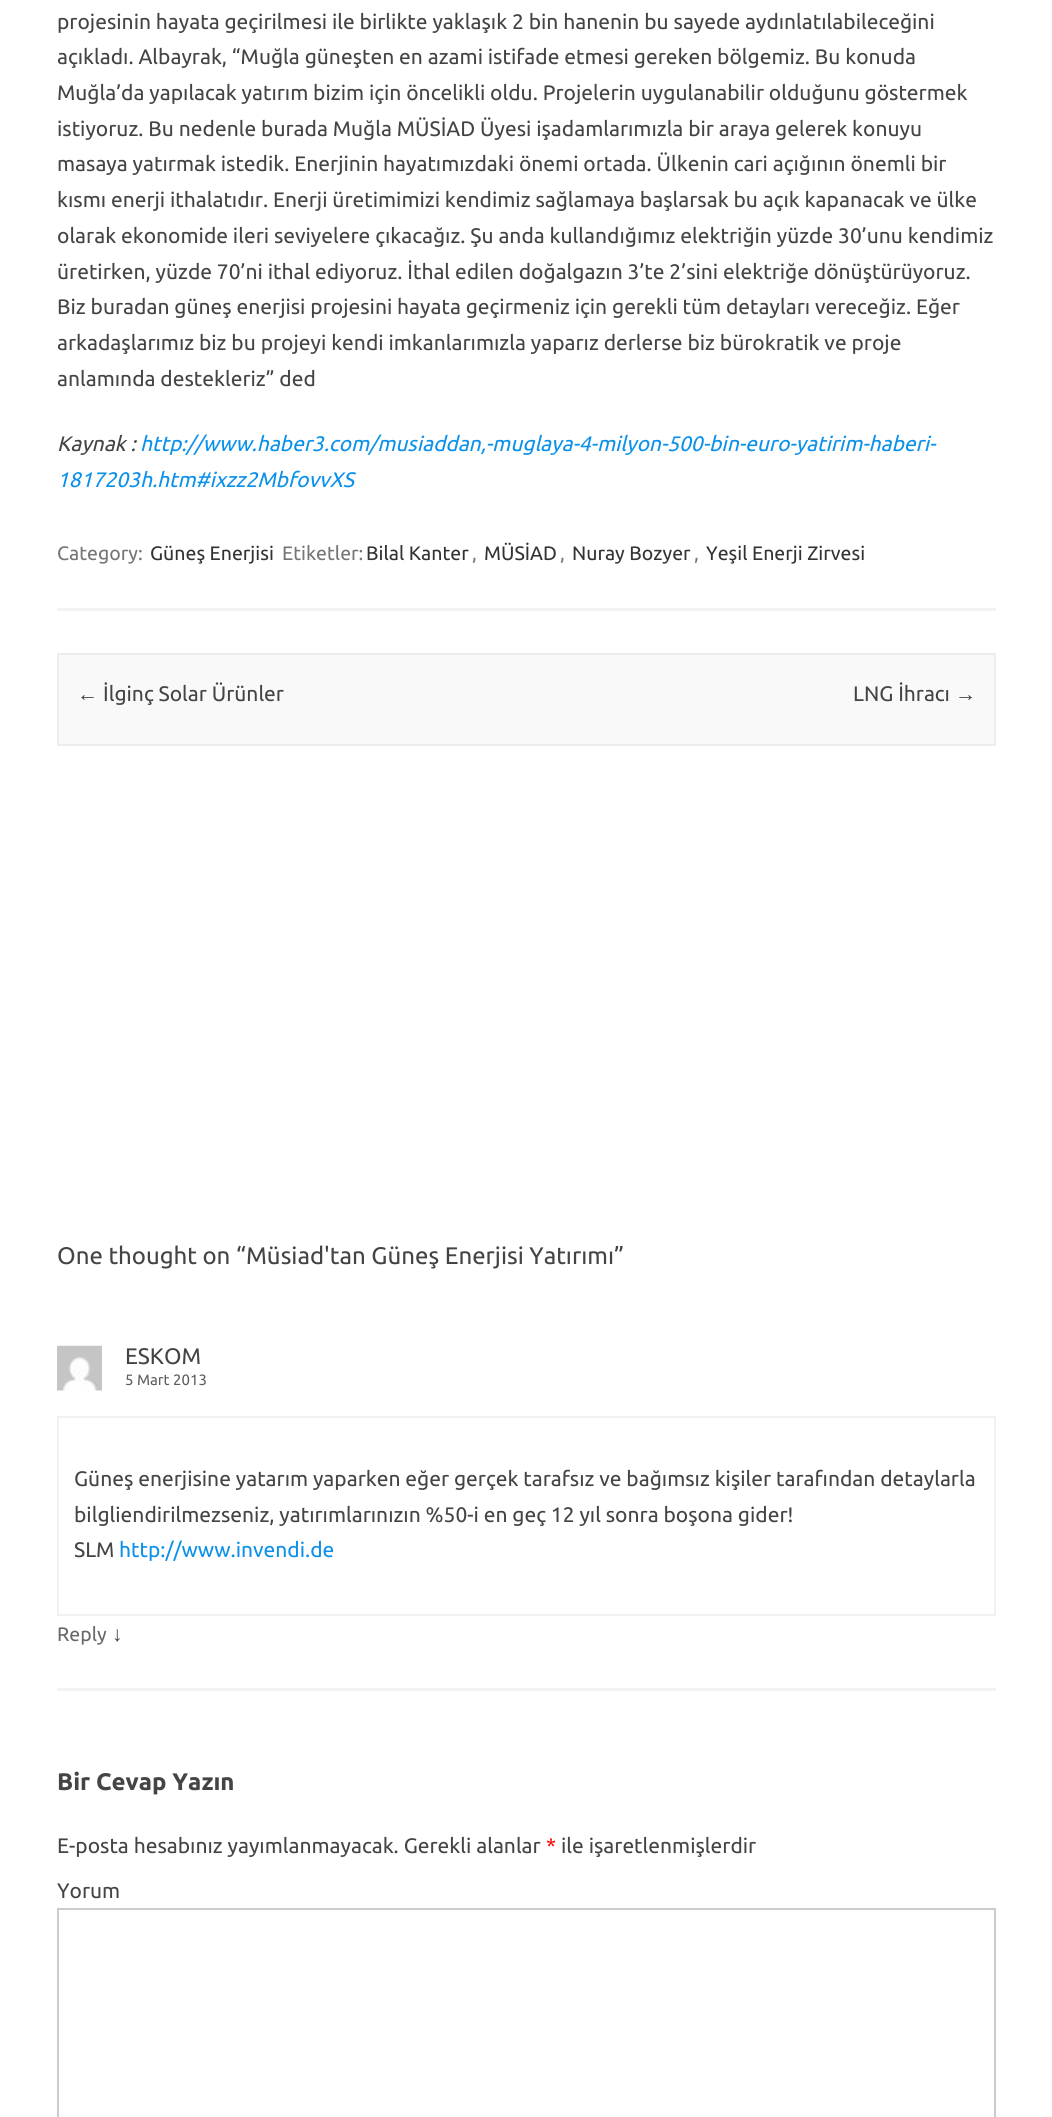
#include <cairo/cairo.h>
#include <math.h>
#include <stddef.h>

static cairo_t *cr;

static void use_color(int r, int g, int b) {
  cairo_set_source_rgb(cr, r / 255.0, g / 255.0, b / 255.0);
}

static void text(double x, double y, const char *s, const char *family, double size, int italic, int bold, int r, int g, int b) {
  cairo_select_font_face(cr, family, italic ? CAIRO_FONT_SLANT_ITALIC : CAIRO_FONT_SLANT_NORMAL,
    bold ? CAIRO_FONT_WEIGHT_BOLD : CAIRO_FONT_WEIGHT_NORMAL);
  cairo_set_font_size(cr, size);
  use_color(r, g, b);
  cairo_move_to(cr, x, y);
  cairo_show_text(cr, s);
}

static void box(double x, double y, double w, double h, int r, int g, int b) {
  use_color(r, g, b);
  cairo_rectangle(cr, x, y, w, h);
  cairo_fill(cr);
}

static void picture(const char *path, double x, double y, double w, double h) {
  cairo_surface_t *image = cairo_image_surface_create_from_png(path);
  cairo_save(cr);
  cairo_set_source_surface(cr, image, x, y);
  cairo_rectangle(cr, x, y, w, h);
  cairo_fill(cr);
  cairo_restore(cr);
  cairo_surface_destroy(image);
}

static void draw(void) {
  use_color(255, 255, 255);
  cairo_paint(cr);
  box(57, 608, 939, 3, 243, 243, 243);
  use_color(249, 249, 249);
  cairo_rectangle(cr, 58, 654, 937, 91);
  cairo_fill_preserve(cr);
  use_color(237, 237, 237);
  cairo_stroke(cr);
  box(57, 1688, 939, 3, 243, 243, 243);
  picture("img_01.png", 57, 1345, 45, 46);
  cairo_rectangle(cr, 58, 1417, 937, 198);
  use_color(241, 241, 241);
  cairo_stroke(cr);
  cairo_rectangle(cr, 58, 1909, 937, 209);
  use_color(204, 204, 204);
  cairo_stroke(cr);
  text(57, 29, "projesinin hayata geçirilmesi ile birlikte yaklaşık 2 bin hanenin bu sayede aydınlatılabileceğini", "Ubuntu", 21, 0, 0, 68, 68, 68);
  text(57, 64, "açıkladı. Albayrak, “Muğla güneşten en azami istifade etmesi gereken bölgemiz. Bu konuda", "Ubuntu", 21, 0, 0, 68, 68, 68);
  text(57, 100, "Muğla’da yapılacak yatırım bizim için öncelikli oldu. Projelerin uygulanabilir olduğunu göstermek", "Ubuntu", 21, 0, 0, 68, 68, 68);
  text(57, 136, "istiyoruz. Bu nedenle burada Muğla MÜSİAD Üyesi işadamlarımızla bir araya gelerek konuyu", "Ubuntu", 21, 0, 0, 68, 68, 68);
  text(57, 171, "masaya yatırmak istedik. Enerjinin hayatımızdaki önemi ortada. Ülkenin cari açığının önemli bir", "Ubuntu", 21, 0, 0, 68, 68, 68);
  text(57, 207, "kısmı enerji ithalatıdır. Enerji üretimimizi kendimiz sağlamaya başlarsak bu açık kapanacak ve ülke", "Ubuntu", 21, 0, 0, 68, 68, 68);
  text(57, 243, "olarak ekonomide ileri seviyelere çıkacağız. Şu anda kullandığımız elektriğin yüzde 30’unu kendimiz", "Ubuntu", 21, 0, 0, 68, 68, 68);
  text(57, 279, "üretirken, yüzde 70’ni ithal ediyoruz. İthal edilen doğalgazın 3’te 2’sini elektriğe dönüştürüyoruz.", "Ubuntu", 21, 0, 0, 68, 68, 68);
  text(57, 314, "Biz buradan güneş enerjisi projesini hayata geçirmeniz için gerekli tüm detayları vereceğiz. Eğer", "Ubuntu", 21, 0, 0, 68, 68, 68);
  text(57, 350, "arkadaşlarımız biz bu projeyi kendi imkanlarımızla yaparız derlerse biz bürokratik ve proje", "Ubuntu", 21, 0, 0, 68, 68, 68);
  text(57, 386, "anlamında destekleriz” ded", "Ubuntu", 21, 0, 0, 68, 68, 68);
  text(57, 451, "Kaynak :", "Ubuntu", 21, 1, 0, 68, 68, 68);
  text(140, 451, "http://www.haber3.com/musiaddan,-muglaya-4-milyon-500-bin-euro-yatirim-haberi-", "Ubuntu", 21, 1, 0, 11, 145, 234);
  text(57, 487, "1817203h.htm#ixzz2MbfovvXS", "Ubuntu", 21, 1, 0, 11, 145, 234);
  text(57, 560, "Category:", "Ubuntu", 19.5, 0, 0, 117, 117, 117);
  text(150, 560, "Güneş Enerjisi", "Ubuntu", 19.5, 0, 0, 51, 51, 51);
  text(282, 560, "Etiketler:", "Ubuntu", 19.5, 0, 0, 117, 117, 117);
  text(366, 560, "Bilal Kanter", "Ubuntu", 19.5, 0, 0, 51, 51, 51);
  text(472, 560, ",", "Ubuntu", 19.5, 0, 0, 117, 117, 117);
  text(484, 560, "MÜSİAD", "Ubuntu", 19.5, 0, 0, 51, 51, 51);
  text(560, 560, ",", "Ubuntu", 19.5, 0, 0, 117, 117, 117);
  text(572, 560, "Nuray Bozyer", "Ubuntu", 19.5, 0, 0, 51, 51, 51);
  text(694, 560, ",", "Ubuntu", 19.5, 0, 0, 117, 117, 117);
  text(706, 560, "Yeşil Enerji Zirvesi", "Ubuntu", 19.5, 0, 0, 51, 51, 51);
  text(77, 701, "←", "Liberation Sans", 21, 0, 0, 68, 68, 68);
  text(103, 701, "İlginç Solar Ürünler", "Ubuntu", 21, 0, 0, 68, 68, 68);
  text(853, 701, "LNG İhracı", "Ubuntu", 21, 0, 0, 68, 68, 68);
  text(955, 701, "→", "Liberation Sans", 21, 0, 0, 68, 68, 68);
  text(57, 1264, "One thought on “Müsiad'tan Güneş Enerjisi Yatırımı”", "Ubuntu", 24, 0, 0, 68, 68, 68);
  text(125, 1364, "ESKOM", "Ubuntu", 22.5, 0, 0, 68, 68, 68);
  text(125, 1385, "5 Mart 2013", "Ubuntu", 15, 0, 0, 94, 94, 94);
  text(74, 1486, "Güneş enerjisine yatarım yaparken eğer gerçek tarafsız ve bağımsız kişiler tarafından detaylarla", "Ubuntu", 21, 0, 0, 68, 68, 68);
  text(74, 1522, "bilgliendirilmezseniz, yatırımlarınızın %50-i en geç 12 yıl sonra boşona gider!", "Ubuntu", 21, 0, 0, 68, 68, 68);
  text(74, 1557, "SLM", "Ubuntu", 21, 0, 0, 68, 68, 68);
  text(119, 1557, "http://www.invendi.de", "Ubuntu", 21, 0, 0, 11, 145, 234);
  text(57, 1641, "Reply", "Ubuntu", 19.5, 0, 0, 104, 104, 104);
  text(112, 1641, "↓", "Liberation Sans", 21, 0, 0, 68, 68, 68);
  text(57, 1790, "Bir Cevap Yazın", "Ubuntu", 24, 0, 1, 68, 68, 68);
  text(57, 1853, "E-posta hesabınız yayımlanmayacak. Gerekli alanlar", "Ubuntu", 21, 0, 0, 68, 68, 68);
  text(546, 1853, "*", "Ubuntu", 21, 0, 0, 255, 0, 0);
  text(561, 1853, "ile işaretlenmişlerdir", "Ubuntu", 21, 0, 0, 68, 68, 68);
  text(57, 1898, "Yorum", "Ubuntu", 21, 0, 0, 68, 68, 68);
}

int main(void) {
  cairo_surface_t *surface = cairo_image_surface_create(CAIRO_FORMAT_RGB24, 1052, 2117);
  cr = cairo_create(surface);
  cairo_font_options_t *options = cairo_font_options_create();
  cairo_font_options_set_hint_metrics(options, CAIRO_HINT_METRICS_OFF);
  cairo_font_options_set_hint_style(options, CAIRO_HINT_STYLE_NONE);
  cairo_set_font_options(cr, options);
  cairo_set_miter_limit(cr, 4);
  draw();
  cairo_surface_write_to_png(surface, "out.png");
  cairo_font_options_destroy(options);
  cairo_destroy(cr);
  cairo_surface_destroy(surface);
  return 0;
}
